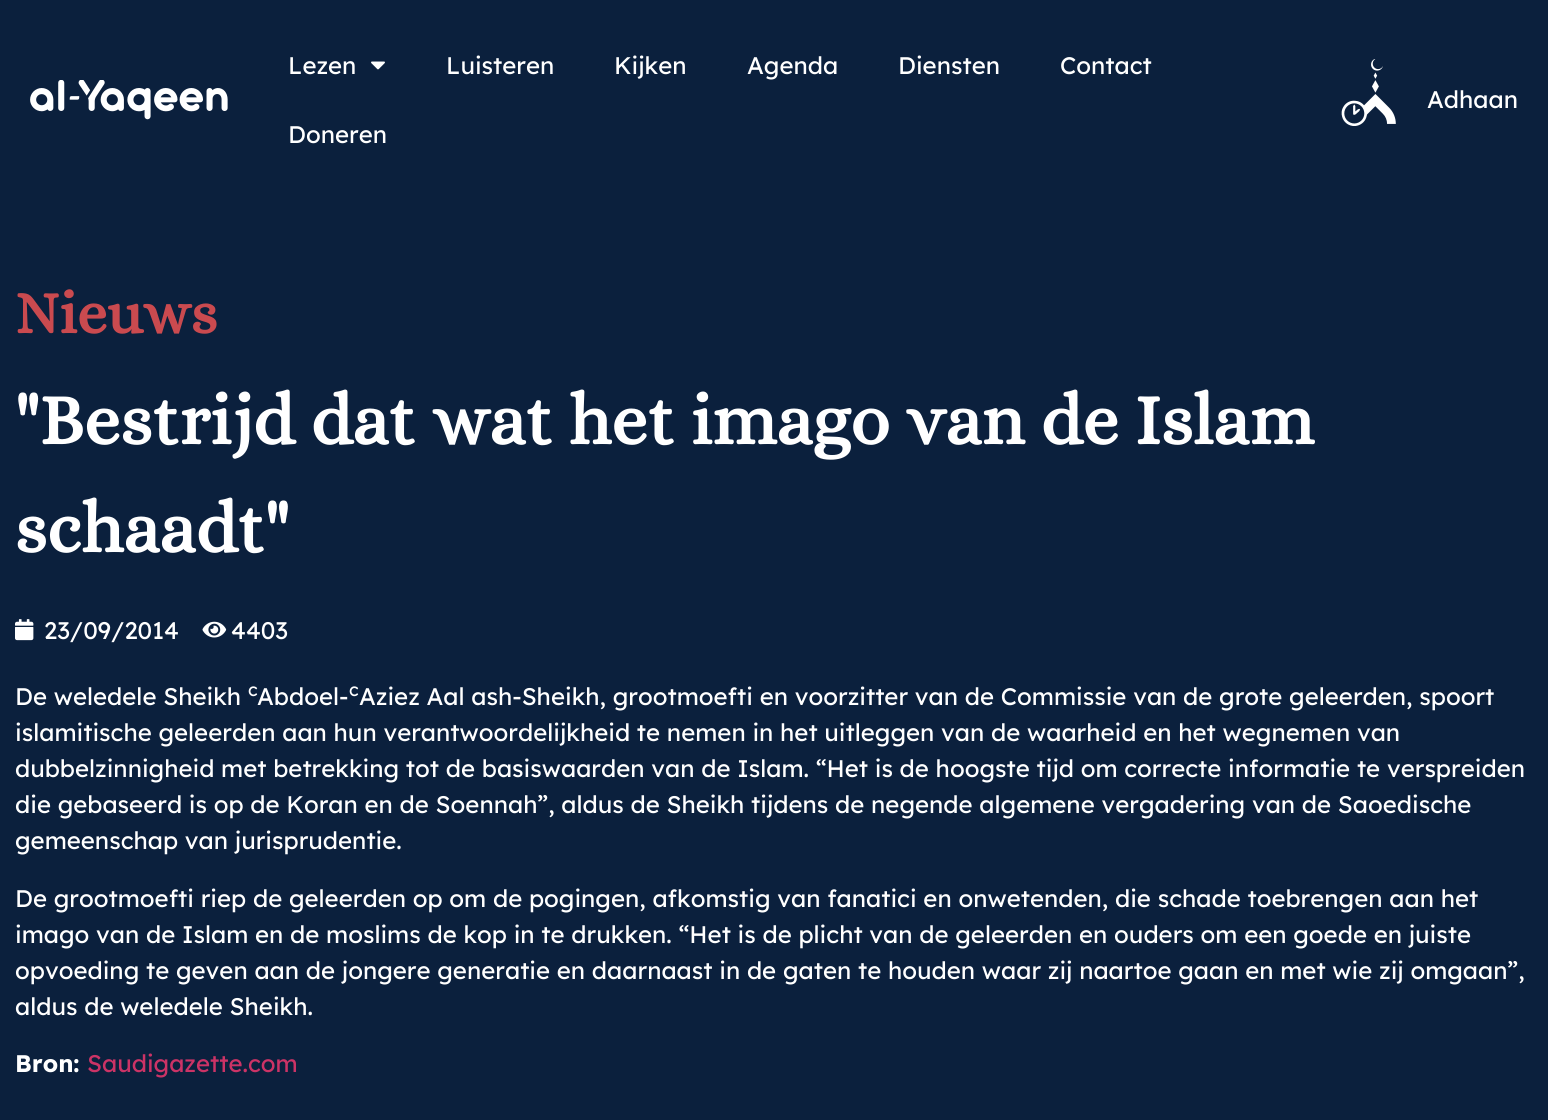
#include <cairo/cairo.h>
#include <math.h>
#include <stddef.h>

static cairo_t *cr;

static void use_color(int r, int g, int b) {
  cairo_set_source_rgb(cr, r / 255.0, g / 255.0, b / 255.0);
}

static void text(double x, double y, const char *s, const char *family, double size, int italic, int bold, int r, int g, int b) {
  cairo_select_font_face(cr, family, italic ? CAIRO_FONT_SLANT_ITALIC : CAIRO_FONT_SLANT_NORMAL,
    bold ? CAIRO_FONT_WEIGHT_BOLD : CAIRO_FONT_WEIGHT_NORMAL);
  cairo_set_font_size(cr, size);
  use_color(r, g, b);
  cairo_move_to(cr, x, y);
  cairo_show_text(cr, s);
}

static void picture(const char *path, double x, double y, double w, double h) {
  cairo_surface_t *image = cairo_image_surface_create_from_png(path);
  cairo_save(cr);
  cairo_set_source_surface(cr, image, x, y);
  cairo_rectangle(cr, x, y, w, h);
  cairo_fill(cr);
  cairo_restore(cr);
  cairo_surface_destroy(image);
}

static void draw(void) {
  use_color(11, 32, 61);
  cairo_paint(cr);
  picture("img_01.png", 30, 80, 198, 40);
  picture("img_02.png", 371, 61, 14, 9);
  picture("img_03.png", 1341, 59, 55, 67);
  picture("img_04.png", 15, 619, 19, 22);
  picture("img_05.png", 202, 621, 25, 17);
  text(288, 74, "Lezen", "Lexend Deca", 24, 0, 0, 255, 255, 255);
  text(446, 74, "Luisteren", "Lexend Deca", 24, 0, 0, 255, 255, 255);
  text(614, 74, "Kijken", "Lexend Deca", 24, 0, 0, 255, 255, 255);
  text(747, 74, "Agenda", "Lexend Deca", 24, 0, 0, 255, 255, 255);
  text(898, 74, "Diensten", "Lexend Deca", 24, 0, 0, 255, 255, 255);
  text(1060, 74, "Contact", "Lexend Deca", 24, 0, 0, 255, 255, 255);
  text(288, 143, "Doneren", "Lexend Deca", 24, 0, 0, 255, 255, 255);
  text(1427, 108, "Adhaan", "Lexend Deca", 24, 0, 0, 255, 255, 255);
  text(15, 333, "Nieuws", "Alice", 60, 0, 1, 202, 74, 79);
  text(15, 444, "\"Bestrijd dat wat het imago van de Islam", "Alice", 72, 0, 1, 255, 255, 255);
  text(15, 552, "schaadt\"", "Alice", 72, 0, 1, 255, 255, 255);
  text(44, 639, "23/09/2014", "Lexend Deca", 24, 0, 0, 255, 255, 255);
  text(231, 639, "4403", "Lexend Deca", 24, 0, 0, 255, 255, 255);
  text(15, 705, "De weledele Sheikh", "Lexend Deca", 24, 0, 0, 255, 255, 255);
  text(248, 696, "c", "Lexend Deca", 18, 0, 0, 255, 255, 255);
  text(257, 705, "Abdoel-", "Lexend Deca", 24, 0, 0, 255, 255, 255);
  text(349, 696, "c", "Lexend Deca", 18, 0, 0, 255, 255, 255);
  text(359, 705, "Aziez Aal ash-Sheikh, grootmoefti en voorzitter van de Commissie van de grote geleerden, spoort", "Lexend Deca", 24, 0, 0, 255, 255, 255);
  text(15, 741, "islamitische geleerden aan hun verantwoordelijkheid te nemen in het uitleggen van de waarheid en het wegnemen van", "Lexend Deca", 24, 0, 0, 255, 255, 255);
  text(15, 777, "dubbelzinnigheid met betrekking tot de basiswaarden van de Islam. “Het is de hoogste tijd om correcte informatie te verspreiden", "Lexend Deca", 24, 0, 0, 255, 255, 255);
  text(15, 813, "die gebaseerd is op de Koran en de Soennah”, aldus de Sheikh tijdens de negende algemene vergadering van de Saoedische", "Lexend Deca", 24, 0, 0, 255, 255, 255);
  text(15, 849, "gemeenschap van jurisprudentie.", "Lexend Deca", 24, 0, 0, 255, 255, 255);
  text(15, 907, "De grootmoefti riep de geleerden op om de pogingen, afkomstig van fanatici en onwetenden, die schade toebrengen aan het", "Lexend Deca", 24, 0, 0, 255, 255, 255);
  text(15, 943, "imago van de Islam en de moslims de kop in te drukken. “Het is de plicht van de geleerden en ouders om een goede en juiste", "Lexend Deca", 24, 0, 0, 255, 255, 255);
  text(15, 979, "opvoeding te geven aan de jongere generatie en daarnaast in de gaten te houden waar zij naartoe gaan en met wie zij omgaan”,", "Lexend Deca", 24, 0, 0, 255, 255, 255);
  text(15, 1015, "aldus de weledele Sheikh.", "Lexend Deca", 24, 0, 0, 255, 255, 255);
  text(15, 1072, "Bron:", "Lexend Deca", 24, 0, 1, 255, 255, 255);
  text(87, 1072, "Saudigazette.com", "Lexend Deca", 24, 0, 0, 204, 51, 102);
}

int main(void) {
  cairo_surface_t *surface = cairo_image_surface_create(CAIRO_FORMAT_RGB24, 1548, 1120);
  cr = cairo_create(surface);
  cairo_font_options_t *options = cairo_font_options_create();
  cairo_font_options_set_hint_metrics(options, CAIRO_HINT_METRICS_OFF);
  cairo_font_options_set_hint_style(options, CAIRO_HINT_STYLE_NONE);
  cairo_set_font_options(cr, options);
  cairo_set_miter_limit(cr, 4);
  draw();
  cairo_surface_write_to_png(surface, "out.png");
  cairo_font_options_destroy(options);
  cairo_destroy(cr);
  cairo_surface_destroy(surface);
  return 0;
}
